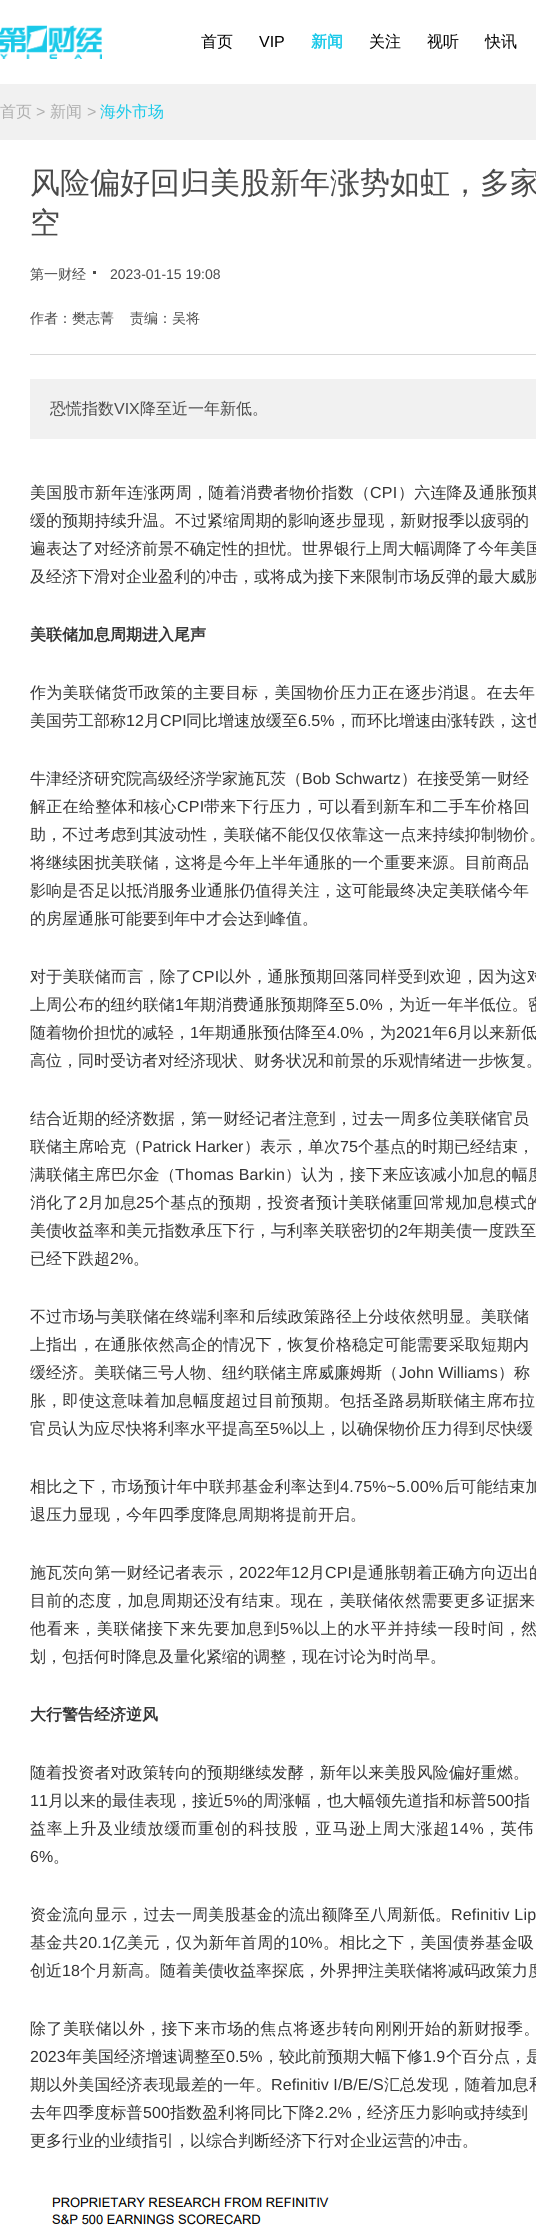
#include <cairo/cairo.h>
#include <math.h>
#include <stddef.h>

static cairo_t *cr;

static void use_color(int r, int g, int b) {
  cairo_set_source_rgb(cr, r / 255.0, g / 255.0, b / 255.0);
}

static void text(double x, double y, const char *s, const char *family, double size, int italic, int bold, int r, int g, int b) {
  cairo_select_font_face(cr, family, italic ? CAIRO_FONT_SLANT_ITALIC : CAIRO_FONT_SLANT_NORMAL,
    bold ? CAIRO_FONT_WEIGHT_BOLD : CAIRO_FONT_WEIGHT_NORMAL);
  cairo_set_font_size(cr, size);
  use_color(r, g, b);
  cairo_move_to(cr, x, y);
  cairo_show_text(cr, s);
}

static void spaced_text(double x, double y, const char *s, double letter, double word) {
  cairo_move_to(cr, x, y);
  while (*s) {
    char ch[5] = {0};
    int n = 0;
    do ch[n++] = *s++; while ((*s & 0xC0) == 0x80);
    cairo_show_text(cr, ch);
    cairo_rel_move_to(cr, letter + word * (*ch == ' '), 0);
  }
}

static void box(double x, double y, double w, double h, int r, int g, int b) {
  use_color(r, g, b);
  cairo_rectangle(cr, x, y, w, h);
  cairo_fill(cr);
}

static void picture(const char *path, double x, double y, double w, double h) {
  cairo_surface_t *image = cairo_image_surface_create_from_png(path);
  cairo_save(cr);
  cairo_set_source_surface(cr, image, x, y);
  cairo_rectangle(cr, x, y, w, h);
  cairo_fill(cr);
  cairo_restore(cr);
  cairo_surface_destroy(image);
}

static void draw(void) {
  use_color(241, 241, 241);
  cairo_paint(cr);
  box(0, 0, 536, 84, 255, 255, 255);
  picture("img_01.png", 0, 25, 102, 34);
  box(0, 140, 536, 2088, 255, 255, 255);
  box(30, 354, 506, 1, 216, 216, 216);
  box(93, 271, 3, 3, 74, 74, 74);
  box(30, 379, 506, 60, 241, 241, 241);
  picture("img_02.png", 52, 2197, 277, 28);
  text(201, 47, "首页", "WenQuanYi Zen Hei Medium", 16, 0, 0, 0, 0, 0);
  text(259, 47, "VIP", "Liberation Sans", 16, 0, 0, 0, 0, 0);
  text(311, 47, "新闻", "WenQuanYi Zen Hei", 16, 0, 1, 26, 201, 233);
  text(369, 47, "关注", "WenQuanYi Zen Hei Medium", 16, 0, 0, 0, 0, 0);
  text(427, 47, "视听", "WenQuanYi Zen Hei Medium", 16, 0, 0, 0, 0, 0);
  text(485, 47, "快讯", "WenQuanYi Zen Hei Medium", 16, 0, 0, 0, 0, 0);
  text(0, 117, "首页", "WenQuanYi Zen Hei Medium", 16, 0, 0, 174, 174, 174);
  text(36, 117, ">", "Liberation Sans", 16, 0, 0, 174, 174, 174);
  text(50, 117, "新闻", "WenQuanYi Zen Hei Medium", 16, 0, 0, 174, 174, 174);
  text(87, 117, ">", "Liberation Sans", 16, 0, 0, 174, 174, 174);
  text(100, 117, "海外市场", "WenQuanYi Zen Hei Medium", 16, 0, 0, 26, 201, 233);
  text(30, 193, "风险偏好回归美股新年涨势如虹，多家", "WenQuanYi Zen Hei Medium", 30, 0, 0, 74, 74, 74);
  text(30, 233, "空", "WenQuanYi Zen Hei Medium", 30, 0, 0, 74, 74, 74);
  text(30, 279, "第一财经", "WenQuanYi Zen Hei Medium", 14, 0, 0, 74, 74, 74);
  text(110, 279, "2023-01-15 19:08", "Liberation Sans", 14, 0, 0, 74, 74, 74);
  text(30, 323, "作者：樊志菁", "WenQuanYi Zen Hei Medium", 14, 0, 0, 74, 74, 74);
  text(130, 323, "责编：吴将", "WenQuanYi Zen Hei Medium", 14, 0, 0, 74, 74, 74);
  text(50, 414, "恐慌指数", "WenQuanYi Zen Hei Medium", 16, 0, 0, 74, 74, 74);
  text(114, 414, "VIX", "Liberation Sans", 16, 0, 0, 74, 74, 74);
  text(140, 414, "降至近一年新低。", "WenQuanYi Zen Hei Medium", 16, 0, 0, 74, 74, 74);
  use_color(51, 51, 51);
  spaced_text(30, 498, "美国股市新年连涨两周，随着消费者物价指数（", 0.2, 0);
  cairo_select_font_face(cr, "Liberation Sans", CAIRO_FONT_SLANT_NORMAL, CAIRO_FONT_WEIGHT_NORMAL);
  spaced_text(370, 498, "CPI", 0.2, 0);
  cairo_select_font_face(cr, "WenQuanYi Zen Hei Medium", CAIRO_FONT_SLANT_NORMAL, CAIRO_FONT_WEIGHT_NORMAL);
  spaced_text(398, 498, "）六连降及通胀预期", 0.2, 0);
  spaced_text(30, 526, "缓的预期持续升温。不过紧缩周期的影响逐步显现，新财报季以疲弱的", 0.1, 0);
  text(30, 554, "遍表达了对经济前景不确定性的担忧。世界银行上周大幅调降了今年美国", "WenQuanYi Zen Hei Medium", 16, 0, 0, 51, 51, 51);
  text(30, 582, "及经济下滑对企业盈利的冲击，或将成为接下来限制市场反弹的最大威胁", "WenQuanYi Zen Hei Medium", 16, 0, 0, 51, 51, 51);
  text(30, 640, "美联储加息周期进入尾声", "WenQuanYi Zen Hei", 16, 0, 1, 51, 51, 51);
  cairo_select_font_face(cr, "WenQuanYi Zen Hei Medium", CAIRO_FONT_SLANT_NORMAL, CAIRO_FONT_WEIGHT_NORMAL);
  spaced_text(30, 698, "作为美联储货币政策的主要目标，美国物价压力正在逐步消退。在去年", 0.3, 0);
  text(30, 726, "美国劳工部称", "WenQuanYi Zen Hei Medium", 16, 0, 0, 51, 51, 51);
  text(126, 726, "12", "Liberation Sans", 16, 0, 0, 51, 51, 51);
  text(144, 726, "月", "WenQuanYi Zen Hei Medium", 16, 0, 0, 51, 51, 51);
  text(160, 726, "CPI", "Liberation Sans", 16, 0, 0, 51, 51, 51);
  text(186, 726, "同比增速放缓至", "WenQuanYi Zen Hei Medium", 16, 0, 0, 51, 51, 51);
  text(298, 726, "6.5%", "Liberation Sans", 16, 0, 0, 51, 51, 51);
  text(335, 726, "，而环比增速由涨转跌，这也", "WenQuanYi Zen Hei Medium", 16, 0, 0, 51, 51, 51);
  text(30, 784, "牛津经济研究院高级经济学家施瓦茨（", "WenQuanYi Zen Hei Medium", 16, 0, 0, 51, 51, 51);
  text(302, 784, "Bob Schwartz", "Liberation Sans", 16, 0, 0, 51, 51, 51);
  text(401, 784, "）在接受第一财经", "WenQuanYi Zen Hei Medium", 16, 0, 0, 51, 51, 51);
  spaced_text(30, 812, "解正在给整体和核心", 0.3, 0);
  cairo_select_font_face(cr, "Liberation Sans", CAIRO_FONT_SLANT_NORMAL, CAIRO_FONT_WEIGHT_NORMAL);
  spaced_text(177, 812, "CPI", 0.3, 0);
  cairo_select_font_face(cr, "WenQuanYi Zen Hei Medium", CAIRO_FONT_SLANT_NORMAL, CAIRO_FONT_WEIGHT_NORMAL);
  spaced_text(204, 812, "带来下行压力，可以看到新车和二手车价格回", 0.3, 0);
  spaced_text(30, 840, "助，不过考虑到其波动性，美联储不能仅仅依靠这一点来持续抑制物价。", 0.1, 0);
  spaced_text(30, 868, "将继续困扰美联储，这将是今年上半年通胀的一个重要来源。目前商品", 0.1, 0);
  spaced_text(30, 896, "影响是否足以抵消服务业通胀仍值得关注，这可能最终决定美联储今年", 0.1, 0);
  text(30, 924, "的房屋通胀可能要到年中才会达到峰值。", "WenQuanYi Zen Hei Medium", 16, 0, 0, 51, 51, 51);
  spaced_text(30, 982, "对于美联储而言，除了", 0.2, 0);
  cairo_select_font_face(cr, "Liberation Sans", CAIRO_FONT_SLANT_NORMAL, CAIRO_FONT_WEIGHT_NORMAL);
  spaced_text(192, 982, "CPI", 0.2, 0);
  cairo_select_font_face(cr, "WenQuanYi Zen Hei Medium", CAIRO_FONT_SLANT_NORMAL, CAIRO_FONT_WEIGHT_NORMAL);
  spaced_text(219, 982, "以外，通胀预期回落同样受到欢迎，因为这对", 0.2, 0);
  spaced_text(30, 1010, "上周公布的纽约联储", 0.1, 0);
  cairo_select_font_face(cr, "Liberation Sans", CAIRO_FONT_SLANT_NORMAL, CAIRO_FONT_WEIGHT_NORMAL);
  spaced_text(175, 1010, "1", 0.1, 0);
  cairo_select_font_face(cr, "WenQuanYi Zen Hei Medium", CAIRO_FONT_SLANT_NORMAL, CAIRO_FONT_WEIGHT_NORMAL);
  spaced_text(184, 1010, "年期消费通胀预期降至", 0.1, 0);
  cairo_select_font_face(cr, "Liberation Sans", CAIRO_FONT_SLANT_NORMAL, CAIRO_FONT_WEIGHT_NORMAL);
  spaced_text(346, 1010, "5.0%", 0.1, 0);
  cairo_select_font_face(cr, "WenQuanYi Zen Hei Medium", CAIRO_FONT_SLANT_NORMAL, CAIRO_FONT_WEIGHT_NORMAL);
  spaced_text(383, 1010, "，为近一年半低位。密", 0.1, 0);
  text(30, 1038, "随着物价担忧的减轻，", "WenQuanYi Zen Hei Medium", 16, 0, 0, 51, 51, 51);
  text(190, 1038, "1", "Liberation Sans", 16, 0, 0, 51, 51, 51);
  text(199, 1038, "年期通胀预估降至", "WenQuanYi Zen Hei Medium", 16, 0, 0, 51, 51, 51);
  text(327, 1038, "4.0%", "Liberation Sans", 16, 0, 0, 51, 51, 51);
  text(364, 1038, "，为", "WenQuanYi Zen Hei Medium", 16, 0, 0, 51, 51, 51);
  text(396, 1038, "2021", "Liberation Sans", 16, 0, 0, 51, 51, 51);
  text(432, 1038, "年", "WenQuanYi Zen Hei Medium", 16, 0, 0, 51, 51, 51);
  text(448, 1038, "6", "Liberation Sans", 16, 0, 0, 51, 51, 51);
  text(457, 1038, "月以来新低", "WenQuanYi Zen Hei Medium", 16, 0, 0, 51, 51, 51);
  text(30, 1066, "高位，同时受访者对经济现状、财务状况和前景的乐观情绪进一步恢复。", "WenQuanYi Zen Hei Medium", 16, 0, 0, 51, 51, 51);
  spaced_text(30, 1124, "结合近期的经济数据，第一财经记者注意到，过去一周多位美联储官员", 0.1, 0);
  text(30, 1152, "联储主席哈克（", "WenQuanYi Zen Hei Medium", 16, 0, 0, 51, 51, 51);
  text(142, 1152, "Patrick Harker", "Liberation Sans", 16, 0, 0, 51, 51, 51);
  text(244, 1152, "）表示，单次", "WenQuanYi Zen Hei Medium", 16, 0, 0, 51, 51, 51);
  text(340, 1152, "75", "Liberation Sans", 16, 0, 0, 51, 51, 51);
  text(358, 1152, "个基点的时期已经结束，", "WenQuanYi Zen Hei Medium", 16, 0, 0, 51, 51, 51);
  spaced_text(30, 1180, "满联储主席巴尔金（", 0.2, 0);
  cairo_select_font_face(cr, "Liberation Sans", CAIRO_FONT_SLANT_NORMAL, CAIRO_FONT_WEIGHT_NORMAL);
  spaced_text(175, 1180, "Thomas Barkin", 0.2, 0);
  cairo_select_font_face(cr, "WenQuanYi Zen Hei Medium", CAIRO_FONT_SLANT_NORMAL, CAIRO_FONT_WEIGHT_NORMAL);
  spaced_text(285, 1180, "）认为，接下来应该减小加息的幅度", 0.2, 0);
  spaced_text(30, 1208, "消化了", 0.2, 0);
  cairo_select_font_face(cr, "Liberation Sans", CAIRO_FONT_SLANT_NORMAL, CAIRO_FONT_WEIGHT_NORMAL);
  spaced_text(79, 1208, "2", 0.2, 0);
  cairo_select_font_face(cr, "WenQuanYi Zen Hei Medium", CAIRO_FONT_SLANT_NORMAL, CAIRO_FONT_WEIGHT_NORMAL);
  spaced_text(88, 1208, "月加息", 0.2, 0);
  cairo_select_font_face(cr, "Liberation Sans", CAIRO_FONT_SLANT_NORMAL, CAIRO_FONT_WEIGHT_NORMAL);
  spaced_text(136, 1208, "25", 0.2, 0);
  cairo_select_font_face(cr, "WenQuanYi Zen Hei Medium", CAIRO_FONT_SLANT_NORMAL, CAIRO_FONT_WEIGHT_NORMAL);
  spaced_text(154, 1208, "个基点的预期，投资者预计美联储重回常规加息模式的", 0.2, 0);
  spaced_text(30, 1236, "美债收益率和美元指数承压下行，与利率关联密切的", 0.05, 0);
  cairo_select_font_face(cr, "Liberation Sans", CAIRO_FONT_SLANT_NORMAL, CAIRO_FONT_WEIGHT_NORMAL);
  spaced_text(399, 1236, "2", 0.05, 0);
  cairo_select_font_face(cr, "WenQuanYi Zen Hei Medium", CAIRO_FONT_SLANT_NORMAL, CAIRO_FONT_WEIGHT_NORMAL);
  spaced_text(408, 1236, "年期美债一度跌至", 0.05, 0);
  text(30, 1264, "已经下跌超", "WenQuanYi Zen Hei Medium", 16, 0, 0, 51, 51, 51);
  text(110, 1264, "2%", "Liberation Sans", 16, 0, 0, 51, 51, 51);
  text(133, 1264, "。", "WenQuanYi Zen Hei Medium", 16, 0, 0, 51, 51, 51);
  spaced_text(30, 1322, "不过市场与美联储在终端利率和后续政策路径上分歧依然明显。美联储", 0.1, 0);
  spaced_text(30, 1350, "上指出，在通胀依然高企的情况下，恢复价格稳定可能需要采取短期内", 0.1, 0);
  text(30, 1378, "缓经济。美联储三号人物、纽约联储主席威廉姆斯（", "WenQuanYi Zen Hei Medium", 16, 0, 0, 51, 51, 51);
  text(399, 1378, "John Williams", "Liberation Sans", 16, 0, 0, 51, 51, 51);
  text(498, 1378, "）称", "WenQuanYi Zen Hei Medium", 16, 0, 0, 51, 51, 51);
  spaced_text(30, 1406, "胀，即使这意味着加息幅度超过目前预期。包括圣路易斯联储主席布拉", 0.3, 0);
  text(30, 1434, "官员认为应尽快将利率水平提高至", "WenQuanYi Zen Hei Medium", 16, 0, 0, 51, 51, 51);
  text(270, 1434, "5%", "Liberation Sans", 16, 0, 0, 51, 51, 51);
  text(293, 1434, "以上，以确保物价压力得到尽快缓", "WenQuanYi Zen Hei Medium", 16, 0, 0, 51, 51, 51);
  spaced_text(30, 1492, "相比之下，市场预计年中联邦基金利率达到", 0.3, 0);
  cairo_select_font_face(cr, "Liberation Sans", CAIRO_FONT_SLANT_NORMAL, CAIRO_FONT_WEIGHT_NORMAL);
  spaced_text(340, 1492, "4.75%~5.00%", 0.3, 0);
  cairo_select_font_face(cr, "WenQuanYi Zen Hei Medium", CAIRO_FONT_SLANT_NORMAL, CAIRO_FONT_WEIGHT_NORMAL);
  spaced_text(444, 1492, "后可能结束加", 0.3, 0);
  text(30, 1520, "退压力显现，今年四季度降息周期将提前开启。", "WenQuanYi Zen Hei Medium", 16, 0, 0, 51, 51, 51);
  spaced_text(30, 1578, "施瓦茨向第一财经记者表示，", 0.1, 0);
  cairo_select_font_face(cr, "Liberation Sans", CAIRO_FONT_SLANT_NORMAL, CAIRO_FONT_WEIGHT_NORMAL);
  spaced_text(239, 1578, "2022", 0.1, 0);
  cairo_select_font_face(cr, "WenQuanYi Zen Hei Medium", CAIRO_FONT_SLANT_NORMAL, CAIRO_FONT_WEIGHT_NORMAL);
  spaced_text(275, 1578, "年", 0.1, 0);
  cairo_select_font_face(cr, "Liberation Sans", CAIRO_FONT_SLANT_NORMAL, CAIRO_FONT_WEIGHT_NORMAL);
  spaced_text(291, 1578, "12", 0.1, 0);
  cairo_select_font_face(cr, "WenQuanYi Zen Hei Medium", CAIRO_FONT_SLANT_NORMAL, CAIRO_FONT_WEIGHT_NORMAL);
  spaced_text(309, 1578, "月", 0.1, 0);
  cairo_select_font_face(cr, "Liberation Sans", CAIRO_FONT_SLANT_NORMAL, CAIRO_FONT_WEIGHT_NORMAL);
  spaced_text(325, 1578, "CPI", 0.1, 0);
  cairo_select_font_face(cr, "WenQuanYi Zen Hei Medium", CAIRO_FONT_SLANT_NORMAL, CAIRO_FONT_WEIGHT_NORMAL);
  spaced_text(352, 1578, "是通胀朝着正确方向迈出的", 0.1, 0);
  spaced_text(30, 1606, "目前的态度，加息周期还没有结束。现在，美联储依然需要更多证据来", 0.3, 0);
  spaced_text(30, 1634, "他看来，美联储接下来先要加息到", 0.7, 0);
  cairo_select_font_face(cr, "Liberation Sans", CAIRO_FONT_SLANT_NORMAL, CAIRO_FONT_WEIGHT_NORMAL);
  spaced_text(280, 1634, "5%", 0.7, 0);
  cairo_select_font_face(cr, "WenQuanYi Zen Hei Medium", CAIRO_FONT_SLANT_NORMAL, CAIRO_FONT_WEIGHT_NORMAL);
  spaced_text(304, 1634, "以上的水平并持续一段时间，然", 0.7, 0);
  text(30, 1662, "划，包括何时降息及量化紧缩的调整，现在讨论为时尚早。", "WenQuanYi Zen Hei Medium", 16, 0, 0, 51, 51, 51);
  text(30, 1720, "大行警告经济逆风", "WenQuanYi Zen Hei", 16, 0, 1, 51, 51, 51);
  cairo_select_font_face(cr, "WenQuanYi Zen Hei Medium", CAIRO_FONT_SLANT_NORMAL, CAIRO_FONT_WEIGHT_NORMAL);
  spaced_text(30, 1778, "随着投资者对政策转向的预期继续发酵，新年以来美股风险偏好重燃。", 0.1, 0);
  text(30, 1806, "11", "Liberation Sans", 16, 0, 0, 51, 51, 51);
  text(48, 1806, "月以来的最佳表现，接近", "WenQuanYi Zen Hei Medium", 16, 0, 0, 51, 51, 51);
  text(224, 1806, "5%", "Liberation Sans", 16, 0, 0, 51, 51, 51);
  text(247, 1806, "的周涨幅，也大幅领先道指和标普", "WenQuanYi Zen Hei Medium", 16, 0, 0, 51, 51, 51);
  text(487, 1806, "500", "Liberation Sans", 16, 0, 0, 51, 51, 51);
  text(514, 1806, "指", "WenQuanYi Zen Hei Medium", 16, 0, 0, 51, 51, 51);
  spaced_text(30, 1834, "益率上升及业绩放缓而重创的科技股，亚马逊上周大涨超", 0.8, 0);
  cairo_select_font_face(cr, "Liberation Sans", CAIRO_FONT_SLANT_NORMAL, CAIRO_FONT_WEIGHT_NORMAL);
  spaced_text(450, 1834, "14%", 0.8, 0);
  cairo_select_font_face(cr, "WenQuanYi Zen Hei Medium", CAIRO_FONT_SLANT_NORMAL, CAIRO_FONT_WEIGHT_NORMAL);
  spaced_text(484, 1834, "，英伟", 0.8, 0);
  text(30, 1862, "6%", "Liberation Sans", 16, 0, 0, 51, 51, 51);
  text(53, 1862, "。", "WenQuanYi Zen Hei Medium", 16, 0, 0, 51, 51, 51);
  spaced_text(30, 1920, "资金流向显示，过去一周美股基金的流出额降至八周新低。", 0.2, 0);
  cairo_select_font_face(cr, "Liberation Sans", CAIRO_FONT_SLANT_NORMAL, CAIRO_FONT_WEIGHT_NORMAL);
  spaced_text(451, 1920, "Refinitiv Lip", 0.2, 0);
  cairo_select_font_face(cr, "WenQuanYi Zen Hei Medium", CAIRO_FONT_SLANT_NORMAL, CAIRO_FONT_WEIGHT_NORMAL);
  spaced_text(30, 1948, "基金共", 0.25, 0);
  cairo_select_font_face(cr, "Liberation Sans", CAIRO_FONT_SLANT_NORMAL, CAIRO_FONT_WEIGHT_NORMAL);
  spaced_text(79, 1948, "20.1", 0.25, 0);
  cairo_select_font_face(cr, "WenQuanYi Zen Hei Medium", CAIRO_FONT_SLANT_NORMAL, CAIRO_FONT_WEIGHT_NORMAL);
  spaced_text(111, 1948, "亿美元，仅为新年首周的", 0.25, 0);
  cairo_select_font_face(cr, "Liberation Sans", CAIRO_FONT_SLANT_NORMAL, CAIRO_FONT_WEIGHT_NORMAL);
  spaced_text(290, 1948, "10%", 0.25, 0);
  cairo_select_font_face(cr, "WenQuanYi Zen Hei Medium", CAIRO_FONT_SLANT_NORMAL, CAIRO_FONT_WEIGHT_NORMAL);
  spaced_text(323, 1948, "。相比之下，美国债券基金吸", 0.25, 0);
  text(30, 1976, "创近", "WenQuanYi Zen Hei Medium", 16, 0, 0, 51, 51, 51);
  text(62, 1976, "18", "Liberation Sans", 16, 0, 0, 51, 51, 51);
  text(80, 1976, "个月新高。随着美债收益率探底，外界押注美联储将减码政策力度", "WenQuanYi Zen Hei Medium", 16, 0, 0, 51, 51, 51);
  spaced_text(30, 2034, "除了美联储以外，接下来市场的焦点将逐步转向刚刚开始的新财报季。", 0.45, 0);
  text(30, 2062, "2023", "Liberation Sans", 16, 0, 0, 51, 51, 51);
  text(66, 2062, "年美国经济增速调整至", "WenQuanYi Zen Hei Medium", 16, 0, 0, 51, 51, 51);
  text(226, 2062, "0.5%", "Liberation Sans", 16, 0, 0, 51, 51, 51);
  text(263, 2062, "，较此前预期大幅下修", "WenQuanYi Zen Hei Medium", 16, 0, 0, 51, 51, 51);
  text(423, 2062, "1.9", "Liberation Sans", 16, 0, 0, 51, 51, 51);
  text(446, 2062, "个百分点，是", "WenQuanYi Zen Hei Medium", 16, 0, 0, 51, 51, 51);
  spaced_text(30, 2090, "期以外美国经济表现最差的一年。", 0.1, 0);
  cairo_select_font_face(cr, "Liberation Sans", CAIRO_FONT_SLANT_NORMAL, CAIRO_FONT_WEIGHT_NORMAL);
  spaced_text(271, 2090, "Refinitiv I/B/E/S", 0.1, 0);
  cairo_select_font_face(cr, "WenQuanYi Zen Hei Medium", CAIRO_FONT_SLANT_NORMAL, CAIRO_FONT_WEIGHT_NORMAL);
  spaced_text(384, 2090, "汇总发现，随着加息和", 0.1, 0);
  spaced_text(30, 2118, "去年四季度标普", 0.1, 0);
  cairo_select_font_face(cr, "Liberation Sans", CAIRO_FONT_SLANT_NORMAL, CAIRO_FONT_WEIGHT_NORMAL);
  spaced_text(143, 2118, "500", 0.1, 0);
  cairo_select_font_face(cr, "WenQuanYi Zen Hei Medium", CAIRO_FONT_SLANT_NORMAL, CAIRO_FONT_WEIGHT_NORMAL);
  spaced_text(170, 2118, "指数盈利将同比下降", 0.1, 0);
  cairo_select_font_face(cr, "Liberation Sans", CAIRO_FONT_SLANT_NORMAL, CAIRO_FONT_WEIGHT_NORMAL);
  spaced_text(315, 2118, "2.2%", 0.1, 0);
  cairo_select_font_face(cr, "WenQuanYi Zen Hei Medium", CAIRO_FONT_SLANT_NORMAL, CAIRO_FONT_WEIGHT_NORMAL);
  spaced_text(351, 2118, "，经济压力影响或持续到", 0.1, 0);
  text(30, 2146, "更多行业的业绩指引，以综合判断经济下行对企业运营的冲击。", "WenQuanYi Zen Hei Medium", 16, 0, 0, 51, 51, 51);
}

int main(void) {
  cairo_surface_t *surface = cairo_image_surface_create(CAIRO_FORMAT_RGB24, 536, 2228);
  cr = cairo_create(surface);
  cairo_font_options_t *options = cairo_font_options_create();
  cairo_font_options_set_hint_metrics(options, CAIRO_HINT_METRICS_OFF);
  cairo_font_options_set_hint_style(options, CAIRO_HINT_STYLE_NONE);
  cairo_set_font_options(cr, options);
  cairo_set_miter_limit(cr, 4);
  draw();
  cairo_surface_write_to_png(surface, "out.png");
  cairo_font_options_destroy(options);
  cairo_destroy(cr);
  cairo_surface_destroy(surface);
  return 0;
}
